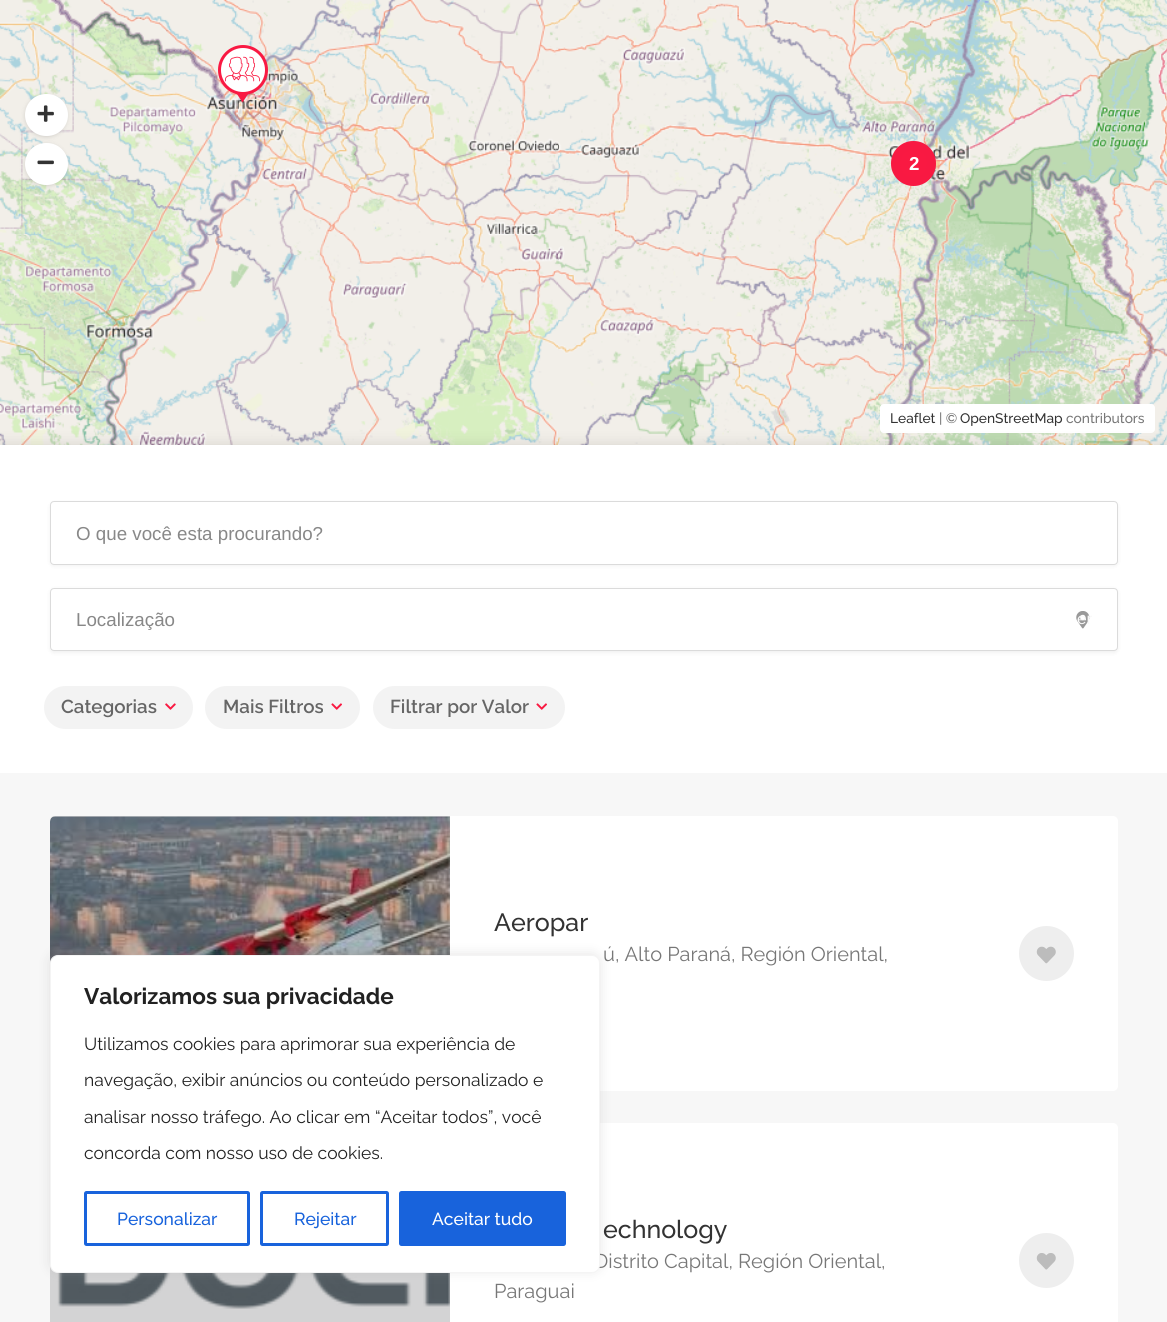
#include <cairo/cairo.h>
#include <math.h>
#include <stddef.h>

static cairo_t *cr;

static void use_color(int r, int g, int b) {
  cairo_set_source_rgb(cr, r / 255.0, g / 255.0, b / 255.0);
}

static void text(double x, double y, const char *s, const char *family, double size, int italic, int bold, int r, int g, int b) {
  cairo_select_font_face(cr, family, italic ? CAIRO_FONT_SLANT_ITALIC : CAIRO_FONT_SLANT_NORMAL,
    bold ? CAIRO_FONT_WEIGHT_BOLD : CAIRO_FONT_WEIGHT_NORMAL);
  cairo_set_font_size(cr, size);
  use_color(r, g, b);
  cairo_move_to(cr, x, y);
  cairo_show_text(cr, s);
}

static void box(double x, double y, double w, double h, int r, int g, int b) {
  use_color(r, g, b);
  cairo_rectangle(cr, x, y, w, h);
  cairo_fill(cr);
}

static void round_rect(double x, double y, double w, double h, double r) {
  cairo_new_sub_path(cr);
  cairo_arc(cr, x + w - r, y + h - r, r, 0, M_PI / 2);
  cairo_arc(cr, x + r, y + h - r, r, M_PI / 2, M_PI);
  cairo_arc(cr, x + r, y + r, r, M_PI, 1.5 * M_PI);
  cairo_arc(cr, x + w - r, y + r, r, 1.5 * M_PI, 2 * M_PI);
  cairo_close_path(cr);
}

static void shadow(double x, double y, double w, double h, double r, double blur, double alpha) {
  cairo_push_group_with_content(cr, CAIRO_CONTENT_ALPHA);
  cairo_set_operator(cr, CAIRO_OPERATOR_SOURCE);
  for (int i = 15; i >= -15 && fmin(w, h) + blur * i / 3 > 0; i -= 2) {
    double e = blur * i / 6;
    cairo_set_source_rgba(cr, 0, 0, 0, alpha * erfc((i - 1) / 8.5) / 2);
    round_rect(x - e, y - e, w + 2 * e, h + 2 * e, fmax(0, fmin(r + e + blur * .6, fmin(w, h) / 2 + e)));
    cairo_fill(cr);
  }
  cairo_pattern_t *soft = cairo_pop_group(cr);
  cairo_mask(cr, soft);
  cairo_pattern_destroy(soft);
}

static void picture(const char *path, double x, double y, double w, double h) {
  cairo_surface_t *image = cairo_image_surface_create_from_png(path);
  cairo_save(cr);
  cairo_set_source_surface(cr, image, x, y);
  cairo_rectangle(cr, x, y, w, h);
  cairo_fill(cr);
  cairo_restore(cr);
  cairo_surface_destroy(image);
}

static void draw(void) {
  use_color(255, 255, 255);
  cairo_paint(cr);
  picture("img_01.png", 0, 0, 238, 234);
  picture("img_02.png", 238, 0, 320, 234);
  picture("img_03.png", 558, 0, 320, 234);
  picture("img_04.png", 878, 0, 289, 234);
  picture("img_05.png", 0, 234, 238, 211);
  picture("img_06.png", 238, 234, 320, 211);
  picture("img_07.png", 558, 234, 320, 211);
  picture("img_08.png", 878, 234, 289, 211);
  use_color(249, 25, 66);
  cairo_new_path(cr);
  cairo_move_to(cr, 236, 92.5);
  cairo_line_to(cr, 249, 92.5);
  cairo_line_to(cr, 242.5, 102.5);
  cairo_close_path(cr);
  cairo_fill(cr);
  use_color(255, 255, 255);
  cairo_arc(cr, 243, 70, 23.5, 0, 2 * M_PI);
  cairo_fill_preserve(cr);
  use_color(249, 25, 66);
  cairo_set_line_width(cr, 3);
  cairo_stroke(cr);
  picture("img_09.png", 225, 56, 35, 26);
  cairo_arc(cr, 913.5, 163.5, 22.5, 0, 2 * M_PI);
  cairo_fill(cr);
  use_color(0, 0, 0);
  shadow(26, 96, 40, 40, 20, 2.5, 0.2);
  use_color(255, 255, 255);
  round_rect(25, 94, 43, 42, 21);
  cairo_fill(cr);
  picture("img_10.png", 37, 105, 17, 17);
  use_color(0, 0, 0);
  shadow(26, 145, 40, 40, 20, 2.5, 0.2);
  use_color(255, 255, 255);
  round_rect(25, 143, 43, 42, 21);
  cairo_fill(cr);
  picture("img_11.png", 37, 160, 17, 5);
  round_rect(880, 404, 275, 29, 4);
  cairo_fill(cr);
  use_color(0, 0, 0);
  shadow(0, 445, 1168, 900, 0, 7.5, 0.12);
  box(0, 773, 1167, 549, 247, 247, 247);
  box(0, 445, 1167, 328, 255, 255, 255);
  use_color(0, 0, 0);
  shadow(50, 503, 1068, 63, 4, 2, 0.06);
  use_color(255, 255, 255);
  round_rect(50.5, 501.5, 1067, 63, 3.5);
  cairo_fill_preserve(cr);
  use_color(219, 219, 219);
  cairo_set_line_width(cr, 1);
  cairo_stroke(cr);
  use_color(0, 0, 0);
  shadow(50, 589, 1068, 64, 4, 2, 0.06);
  use_color(255, 255, 255);
  round_rect(50.5, 588.5, 1067, 62, 3.5);
  cairo_fill_preserve(cr);
  use_color(219, 219, 219);
  cairo_stroke(cr);
  picture("img_12.png", 1076, 611, 14, 18);
  use_color(243, 243, 243);
  round_rect(44, 686, 149, 43, 21.5);
  cairo_fill(cr);
  picture("img_13.png", 165, 703, 11, 7);
  round_rect(205, 686, 155, 43, 21.5);
  cairo_fill(cr);
  picture("img_14.png", 331, 703, 11, 7);
  round_rect(373, 686, 192, 43, 21.5);
  cairo_fill(cr);
  picture("img_14.png", 536, 703, 11, 7);
  use_color(255, 255, 255);
  round_rect(50, 816, 1068, 275, 5);
  cairo_fill(cr);
  picture("img_15.png", 50, 816, 400, 147);
  cairo_set_source_rgba(cr, 0.153, 0.153, 0.161, 0.2);
  cairo_new_path(cr);
  cairo_move_to(cr, 55, 816);
  cairo_line_to(cr, 450, 816);
  cairo_line_to(cr, 450, 1091);
  cairo_line_to(cr, 55, 1091);
  cairo_curve_to(cr, 52, 1091, 50, 1089, 50, 1086);
  cairo_line_to(cr, 50, 821);
  cairo_curve_to(cr, 50, 818, 52, 816, 55, 816);
  cairo_close_path(cr);
  cairo_fill(cr);
  use_color(238, 238, 238);
  cairo_arc(cr, 1046.5, 953.5, 27.5, 0, 2 * M_PI);
  cairo_fill(cr);
  picture("img_16.png", 1036, 946, 20, 18);
  use_color(255, 255, 255);
  round_rect(50, 1123, 1068, 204, 5);
  cairo_fill(cr);
  picture("img_17.png", 57, 1272, 393, 37);
  cairo_set_source_rgba(cr, 0.153, 0.153, 0.161, 0.2);
  cairo_rectangle(cr, 50, 1265, 400, 57);
  cairo_fill(cr);
  use_color(238, 238, 238);
  cairo_arc(cr, 1046.5, 1260.5, 27.5, 0, 2 * M_PI);
  cairo_fill(cr);
  picture("img_18.png", 1036, 1253, 20, 17);
  use_color(172, 171, 171);
  shadow(50, 954, 550, 317, 8, 6, 0.3);
  text(909, 170, "2", "Liberation Sans", 18.75, 0, 1, 255, 255, 255);
  cairo_new_path(cr);
  cairo_arc(cr, 913.5, 163.5, 18, 0, 2 * M_PI);
  cairo_set_source_rgba(cr, 0.976, 0.098, 0.259, 0.2);
  cairo_set_line_width(cr, 9);
  cairo_stroke(cr);
  text(890, 423, "Leaflet", "Raleway Medium", 13.75, 0, 0, 51, 51, 51);
  text(939, 423, "| ©", "Raleway Medium", 13.75, 0, 0, 119, 119, 119);
  text(960, 423, "OpenStreetMap", "Raleway Medium", 13.75, 0, 0, 51, 51, 51);
  text(1066, 423, "contributors", "Raleway Medium", 13.75, 0, 0, 119, 119, 119);
  text(76, 540, "O que você esta procurando?", "Liberation Sans", 18.75, 0, 0, 136, 136, 136);
  text(76, 626, "Localização", "Liberation Sans", 18.75, 0, 0, 136, 136, 136);
  text(1077, 624, "er", "Raleway Medium", 16, 0, 0, 249, 249, 249);
  text(61, 713, "Categorias", "Raleway SemiBold", 18.75, 0, 0, 102, 102, 102);
  text(223, 713, "Mais Filtros", "Raleway SemiBold", 18.75, 0, 0, 102, 102, 102);
  text(390, 713, "Filtrar por Valor", "Raleway SemiBold", 18.75, 0, 0, 102, 102, 102);
  text(494, 931, "Aeropar", "Raleway Medium", 25, 0, 0, 51, 51, 51);
  text(603, 961, "ú, Alto Paraná, Región Oriental,", "Raleway Thin", 20, 0, 0, 119, 119, 119);
  text(603, 1238, "echnology", "Raleway Medium", 25, 0, 0, 51, 51, 51);
  text(594, 1268, "Distrito Capital, Región Oriental,", "Raleway Thin", 20, 0, 0, 119, 119, 119);
  text(494, 1298, "Paraguai", "Raleway Thin", 20, 0, 0, 119, 119, 119);
  use_color(255, 255, 255);
  round_rect(50.5, 955.5, 549, 317, 7.5);
  cairo_fill_preserve(cr);
  use_color(244, 244, 244);
  cairo_set_line_width(cr, 1);
  cairo_stroke(cr);
  text(84, 1004, "Valorizamos sua privacidade", "Raleway", 22.5, 0, 1, 33, 33, 33);
  text(84, 1050, "Utilizamos cookies para aprimorar sua experiência de", "Raleway Thin", 17.5, 0, 0, 33, 33, 33);
  text(84, 1086, "navegação, exibir anúncios ou conteúdo personalizado e", "Raleway Thin", 17.5, 0, 0, 33, 33, 33);
  text(84, 1123, "analisar nosso tráfego. Ao clicar em “Aceitar todos”, você", "Raleway Thin", 17.5, 0, 0, 33, 33, 33);
  text(84, 1159, "concorda com nosso uso de cookies.", "Raleway Thin", 17.5, 0, 0, 33, 33, 33);
  round_rect(85.5, 1192.5, 163, 52, 1);
  use_color(24, 99, 220);
  cairo_set_line_width(cr, 3);
  cairo_stroke(cr);
  text(117, 1225, "Personalizar", "Raleway Medium", 17.5, 0, 0, 24, 99, 220);
  round_rect(261.5, 1192.5, 126, 52, 1);
  cairo_stroke(cr);
  text(294, 1225, "Rejeitar", "Raleway Medium", 17.5, 0, 0, 24, 99, 220);
  round_rect(400.5, 1192.5, 164, 52, 1);
  cairo_fill_preserve(cr);
  cairo_stroke(cr);
  text(432, 1225, "Aceitar tudo", "Raleway Medium", 17.5, 0, 0, 255, 255, 255);
}

int main(void) {
  cairo_surface_t *surface = cairo_image_surface_create(CAIRO_FORMAT_RGB24, 1167, 1322);
  cr = cairo_create(surface);
  cairo_font_options_t *options = cairo_font_options_create();
  cairo_font_options_set_hint_metrics(options, CAIRO_HINT_METRICS_OFF);
  cairo_font_options_set_hint_style(options, CAIRO_HINT_STYLE_NONE);
  cairo_set_font_options(cr, options);
  cairo_set_miter_limit(cr, 4);
  draw();
  cairo_surface_write_to_png(surface, "out.png");
  cairo_font_options_destroy(options);
  cairo_destroy(cr);
  cairo_surface_destroy(surface);
  return 0;
}
